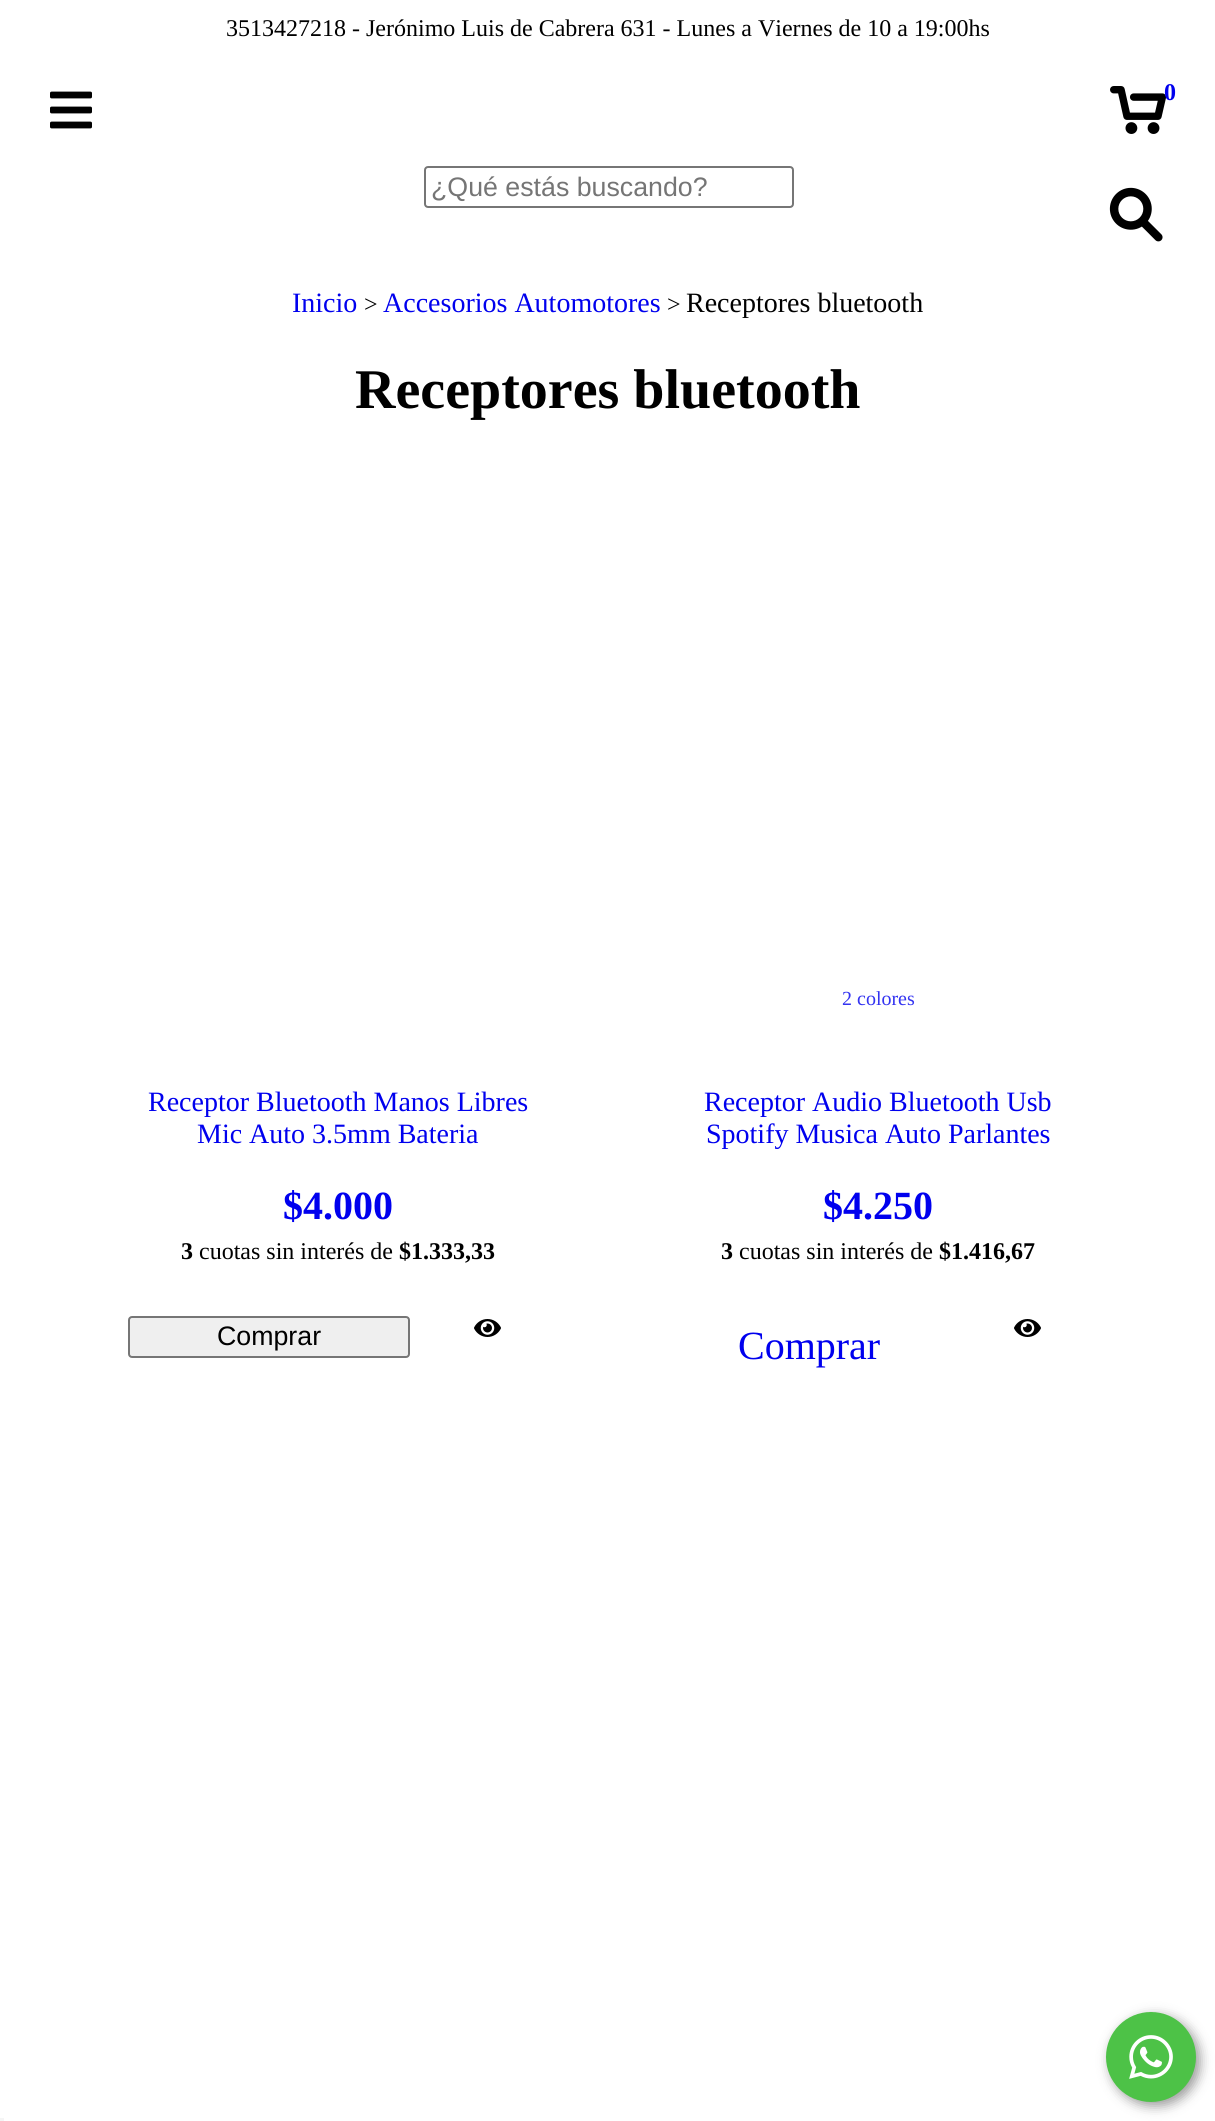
#include <cairo/cairo.h>
#include <math.h>
#include <stddef.h>

static cairo_t *cr;

static void use_color(int r, int g, int b) {
  cairo_set_source_rgb(cr, r / 255.0, g / 255.0, b / 255.0);
}

static void text(double x, double y, const char *s, const char *family, double size, int italic, int bold, int r, int g, int b) {
  cairo_select_font_face(cr, family, italic ? CAIRO_FONT_SLANT_ITALIC : CAIRO_FONT_SLANT_NORMAL,
    bold ? CAIRO_FONT_WEIGHT_BOLD : CAIRO_FONT_WEIGHT_NORMAL);
  cairo_set_font_size(cr, size);
  use_color(r, g, b);
  cairo_move_to(cr, x, y);
  cairo_show_text(cr, s);
}

static void box(double x, double y, double w, double h, int r, int g, int b) {
  use_color(r, g, b);
  cairo_rectangle(cr, x, y, w, h);
  cairo_fill(cr);
}

static void round_rect(double x, double y, double w, double h, double r) {
  cairo_new_sub_path(cr);
  cairo_arc(cr, x + w - r, y + h - r, r, 0, M_PI / 2);
  cairo_arc(cr, x + r, y + h - r, r, M_PI / 2, M_PI);
  cairo_arc(cr, x + r, y + r, r, M_PI, 1.5 * M_PI);
  cairo_arc(cr, x + w - r, y + r, r, 1.5 * M_PI, 2 * M_PI);
  cairo_close_path(cr);
}

static void shadow(double x, double y, double w, double h, double r, double blur, double alpha) {
  cairo_push_group_with_content(cr, CAIRO_CONTENT_ALPHA);
  cairo_set_operator(cr, CAIRO_OPERATOR_SOURCE);
  for (int i = 15; i >= -15 && fmin(w, h) + blur * i / 3 > 0; i -= 2) {
    double e = blur * i / 6;
    cairo_set_source_rgba(cr, 0, 0, 0, alpha * erfc((i - 1) / 8.5) / 2);
    round_rect(x - e, y - e, w + 2 * e, h + 2 * e, fmax(0, fmin(r + e + blur * .6, fmin(w, h) / 2 + e)));
    cairo_fill(cr);
  }
  cairo_pattern_t *soft = cairo_pop_group(cr);
  cairo_mask(cr, soft);
  cairo_pattern_destroy(soft);
}

static void picture(const char *path, double x, double y, double w, double h) {
  cairo_surface_t *image = cairo_image_surface_create_from_png(path);
  cairo_save(cr);
  cairo_set_source_surface(cr, image, x, y);
  cairo_rectangle(cr, x, y, w, h);
  cairo_fill(cr);
  cairo_restore(cr);
  cairo_surface_destroy(image);
}

static void draw(void) {
  use_color(255, 255, 255);
  cairo_paint(cr);
  picture("img_01.png", 50, 91, 42, 38);
  picture("img_02.png", 1110, 86, 57, 48);
  round_rect(425, 167, 368, 40, 3);
  use_color(118, 118, 118);
  cairo_stroke(cr);
  picture("img_03.png", 1109, 187, 54, 55);
  use_color(239, 239, 239);
  round_rect(129, 1317, 280, 40, 3);
  cairo_fill_preserve(cr);
  use_color(118, 118, 118);
  cairo_stroke(cr);
  picture("img_04.png", 474, 1319, 27, 18);
  picture("img_04.png", 1014, 1319, 27, 18);
  box(0, 2118, 4, 3, 245, 245, 245);
  use_color(0, 0, 0);
  shadow(1110, 2016, 90, 90, 45, 6, 0.4);
  use_color(77, 194, 71);
  cairo_arc(cr, 1151, 2057, 45, 0, 2 * M_PI);
  cairo_fill(cr);
  picture("img_05.png", 1129, 2035, 44, 44);
  text(226, 36, "3513427218 - Jerónimo Luis de Cabrera 631 - Lunes a Viernes de 10 a 19:00hs", "Liberation Serif", 24, 0, 0, 0, 0, 0);
  text(1164, 100, "0", "Liberation Serif", 24, 0, 1, 0, 0, 238);
  text(431, 196, "¿Qué estás buscando?", "Liberation Sans", 26.75, 0, 0, 117, 117, 117);
  text(292, 312, "Inicio", "Liberation Serif", 28, 0, 0, 0, 0, 238);
  text(364, 312, ">", "Liberation Serif", 24, 0, 0, 0, 0, 0);
  text(383, 312, "Accesorios Automotores", "Liberation Serif", 28, 0, 0, 0, 0, 238);
  text(667, 312, ">", "Liberation Serif", 24, 0, 0, 0, 0, 0);
  text(686, 312, "Receptores bluetooth", "Liberation Serif", 28, 0, 0, 0, 0, 0);
  text(355, 408, "Receptores bluetooth", "Liberation Serif", 56, 0, 1, 0, 0, 0);
  text(148, 1111, "Receptor Bluetooth Manos Libres", "Liberation Serif", 28, 0, 0, 0, 0, 238);
  text(197, 1143, "Mic Auto 3.5mm Bateria", "Liberation Serif", 28, 0, 0, 0, 0, 238);
  text(283, 1219, "$4.000", "Liberation Serif", 40, 0, 1, 0, 0, 238);
  text(181, 1259, "3", "Liberation Serif", 24, 0, 1, 0, 0, 0);
  text(199, 1259, "cuotas sin interés de", "Liberation Serif", 24, 0, 0, 0, 0, 0);
  text(399, 1259, "$1.333,33", "Liberation Serif", 24, 0, 1, 0, 0, 0);
  text(217, 1345, "Comprar", "Liberation Sans", 26.75, 0, 0, 0, 0, 0);
  text(842, 1005, "2 colores", "Liberation Serif", 20, 0, 0, 51, 51, 241);
  text(704, 1111, "Receptor Audio Bluetooth Usb", "Liberation Serif", 28, 0, 0, 0, 0, 238);
  text(706, 1143, "Spotify Musica Auto Parlantes", "Liberation Serif", 28, 0, 0, 0, 0, 238);
  text(823, 1219, "$4.250", "Liberation Serif", 40, 0, 1, 0, 0, 238);
  text(721, 1259, "3", "Liberation Serif", 24, 0, 1, 0, 0, 0);
  text(739, 1259, "cuotas sin interés de", "Liberation Serif", 24, 0, 0, 0, 0, 0);
  text(939, 1259, "$1.416,67", "Liberation Serif", 24, 0, 1, 0, 0, 0);
  text(738, 1359, "Comprar", "Liberation Serif", 40, 0, 0, 0, 0, 238);
}

int main(void) {
  cairo_surface_t *surface = cairo_image_surface_create(CAIRO_FORMAT_RGB24, 1215, 2121);
  cr = cairo_create(surface);
  cairo_font_options_t *options = cairo_font_options_create();
  cairo_font_options_set_hint_metrics(options, CAIRO_HINT_METRICS_OFF);
  cairo_font_options_set_hint_style(options, CAIRO_HINT_STYLE_NONE);
  cairo_set_font_options(cr, options);
  cairo_set_miter_limit(cr, 4);
  draw();
  cairo_surface_write_to_png(surface, "out.png");
  cairo_font_options_destroy(options);
  cairo_destroy(cr);
  cairo_surface_destroy(surface);
  return 0;
}
